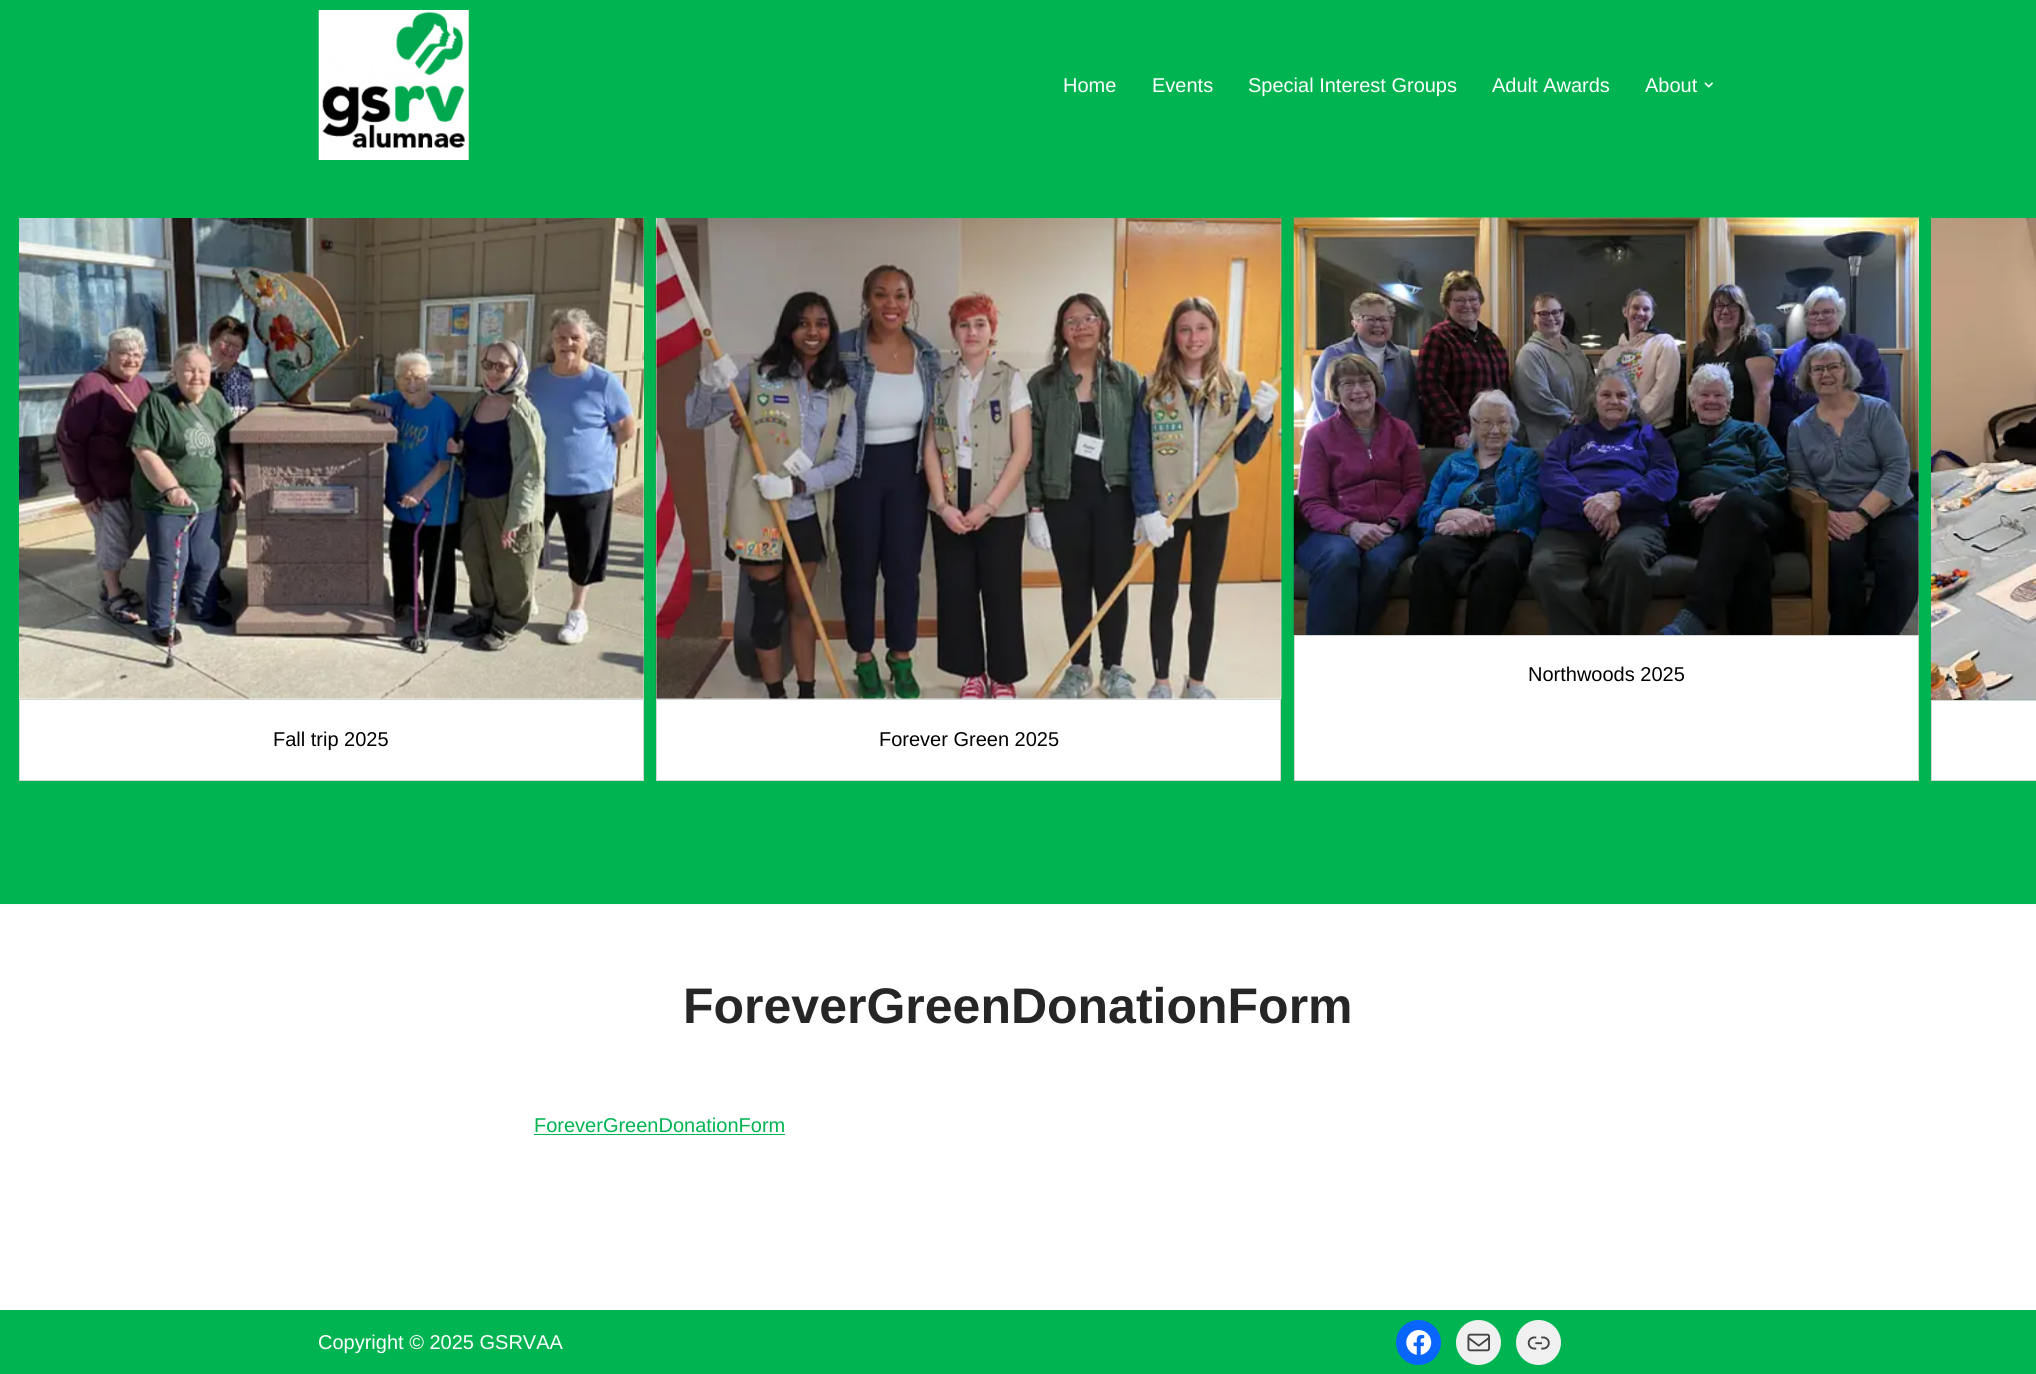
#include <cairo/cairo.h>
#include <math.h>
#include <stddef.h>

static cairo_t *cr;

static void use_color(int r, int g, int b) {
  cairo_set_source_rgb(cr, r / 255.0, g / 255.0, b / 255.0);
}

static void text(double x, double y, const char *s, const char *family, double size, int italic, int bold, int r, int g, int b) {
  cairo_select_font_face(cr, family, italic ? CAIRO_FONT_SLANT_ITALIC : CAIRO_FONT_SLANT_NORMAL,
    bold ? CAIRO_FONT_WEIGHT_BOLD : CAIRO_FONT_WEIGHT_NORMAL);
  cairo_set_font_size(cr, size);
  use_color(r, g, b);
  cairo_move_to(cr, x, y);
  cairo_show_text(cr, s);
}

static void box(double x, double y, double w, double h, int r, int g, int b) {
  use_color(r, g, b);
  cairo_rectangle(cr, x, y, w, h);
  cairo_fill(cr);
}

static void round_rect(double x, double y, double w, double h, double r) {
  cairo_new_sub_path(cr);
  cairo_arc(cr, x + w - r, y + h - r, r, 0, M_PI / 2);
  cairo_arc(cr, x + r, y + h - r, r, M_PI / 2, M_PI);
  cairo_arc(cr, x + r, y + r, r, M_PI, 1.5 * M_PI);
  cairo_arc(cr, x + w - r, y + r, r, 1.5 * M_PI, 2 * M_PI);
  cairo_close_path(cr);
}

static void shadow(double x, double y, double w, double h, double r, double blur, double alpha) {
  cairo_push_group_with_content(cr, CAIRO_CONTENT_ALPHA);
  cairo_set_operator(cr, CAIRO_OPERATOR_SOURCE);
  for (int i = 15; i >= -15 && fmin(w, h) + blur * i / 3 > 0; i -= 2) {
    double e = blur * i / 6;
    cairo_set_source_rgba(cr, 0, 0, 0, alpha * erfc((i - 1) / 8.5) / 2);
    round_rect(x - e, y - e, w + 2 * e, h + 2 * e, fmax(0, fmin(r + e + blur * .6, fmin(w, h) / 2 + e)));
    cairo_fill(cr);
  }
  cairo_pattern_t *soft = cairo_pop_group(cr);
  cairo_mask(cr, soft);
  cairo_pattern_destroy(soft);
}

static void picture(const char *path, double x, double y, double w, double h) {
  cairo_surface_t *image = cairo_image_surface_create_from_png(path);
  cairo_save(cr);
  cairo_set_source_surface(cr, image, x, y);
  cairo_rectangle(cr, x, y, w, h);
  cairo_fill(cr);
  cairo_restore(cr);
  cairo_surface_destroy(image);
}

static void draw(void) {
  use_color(255, 255, 255);
  cairo_paint(cr);
  use_color(0, 0, 0);
  shadow(0, -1, 2036, 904, 0, 2, 0.1);
  box(0, 0, 2036, 904, 0, 180, 81);
  picture("img_01.png", 318, 10, 151, 150);
  picture("img_02.png", 1704, 82, 9, 6);
  box(1295, 218, 624, 562, 255, 255, 255);
  picture("img_03.png", 1293, 217, 626, 418);
  cairo_rectangle(cr, 1294.5, 635.5, 624, 145);
  use_color(213, 213, 213);
  cairo_set_line_width(cr, 1);
  cairo_stroke(cr);
  picture("img_04.png", 1931, 218, 105, 482);
  use_color(255, 255, 255);
  cairo_rectangle(cr, 1931.5, 700.5, 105, 80);
  cairo_fill_preserve(cr);
  use_color(213, 213, 213);
  cairo_stroke(cr);
  box(19, 218, 625, 481, 255, 255, 255);
  picture("img_05.png", 19, 218, 625, 481);
  cairo_rectangle(cr, 19.5, 699.5, 624, 81);
  cairo_fill_preserve(cr);
  use_color(213, 213, 213);
  cairo_stroke(cr);
  box(656, 218, 625, 481, 255, 255, 255);
  picture("img_06.png", 655, 218, 627, 482);
  cairo_rectangle(cr, 656.5, 699.5, 624, 81);
  cairo_fill_preserve(cr);
  use_color(213, 213, 213);
  cairo_stroke(cr);
  box(534, 1134, 251, 1, 0, 180, 81);
  box(0, 1310, 2036, 64, 0, 180, 81);
  use_color(8, 102, 255);
  cairo_arc(cr, 1418.5, 1342.5, 22.5, 0, 2 * M_PI);
  cairo_fill(cr);
  picture("img_07.png", 1406, 1330, 26, 25);
  use_color(240, 240, 240);
  cairo_arc(cr, 1478.5, 1342.5, 22.5, 0, 2 * M_PI);
  cairo_fill(cr);
  picture("img_08.png", 1467, 1333, 23, 19);
  cairo_arc(cr, 1538.5, 1342.5, 22.5, 0, 2 * M_PI);
  cairo_fill(cr);
  picture("img_09.png", 1527, 1336, 23, 14);
  text(1063, 92, "Home", "Liberation Sans", 20, 0, 0, 255, 255, 255);
  text(1152, 92, "Events", "Liberation Sans", 20, 0, 0, 255, 255, 255);
  text(1248, 92, "Special Interest Groups", "Liberation Sans", 20, 0, 0, 255, 255, 255);
  text(1492, 92, "Adult Awards", "Liberation Sans", 20, 0, 0, 255, 255, 255);
  text(1645, 92, "About", "Liberation Sans", 20, 0, 0, 255, 255, 255);
  text(1528, 681, "Northwoods 2025", "Liberation Sans", 20, 0, 0, 0, 0, 0);
  text(273, 746, "Fall trip 2025", "Liberation Sans", 20, 0, 0, 0, 0, 0);
  text(879, 746, "Forever Green 2025", "Liberation Sans", 20, 0, 0, 0, 0, 0);
  text(683, 1023, "ForeverGreenDonationForm", "Liberation Sans", 50, 0, 1, 39, 38, 38);
  text(534, 1132, "ForeverGreenDonationForm", "Liberation Sans", 20, 0, 0, 0, 180, 81);
  text(318, 1349, "Copyright © 2025 GSRVAA", "Liberation Sans", 20, 0, 0, 255, 255, 255);
}

int main(void) {
  cairo_surface_t *surface = cairo_image_surface_create(CAIRO_FORMAT_RGB24, 2036, 1374);
  cr = cairo_create(surface);
  cairo_font_options_t *options = cairo_font_options_create();
  cairo_font_options_set_hint_metrics(options, CAIRO_HINT_METRICS_OFF);
  cairo_font_options_set_hint_style(options, CAIRO_HINT_STYLE_NONE);
  cairo_set_font_options(cr, options);
  cairo_set_miter_limit(cr, 4);
  draw();
  cairo_surface_write_to_png(surface, "out.png");
  cairo_font_options_destroy(options);
  cairo_destroy(cr);
  cairo_surface_destroy(surface);
  return 0;
}
